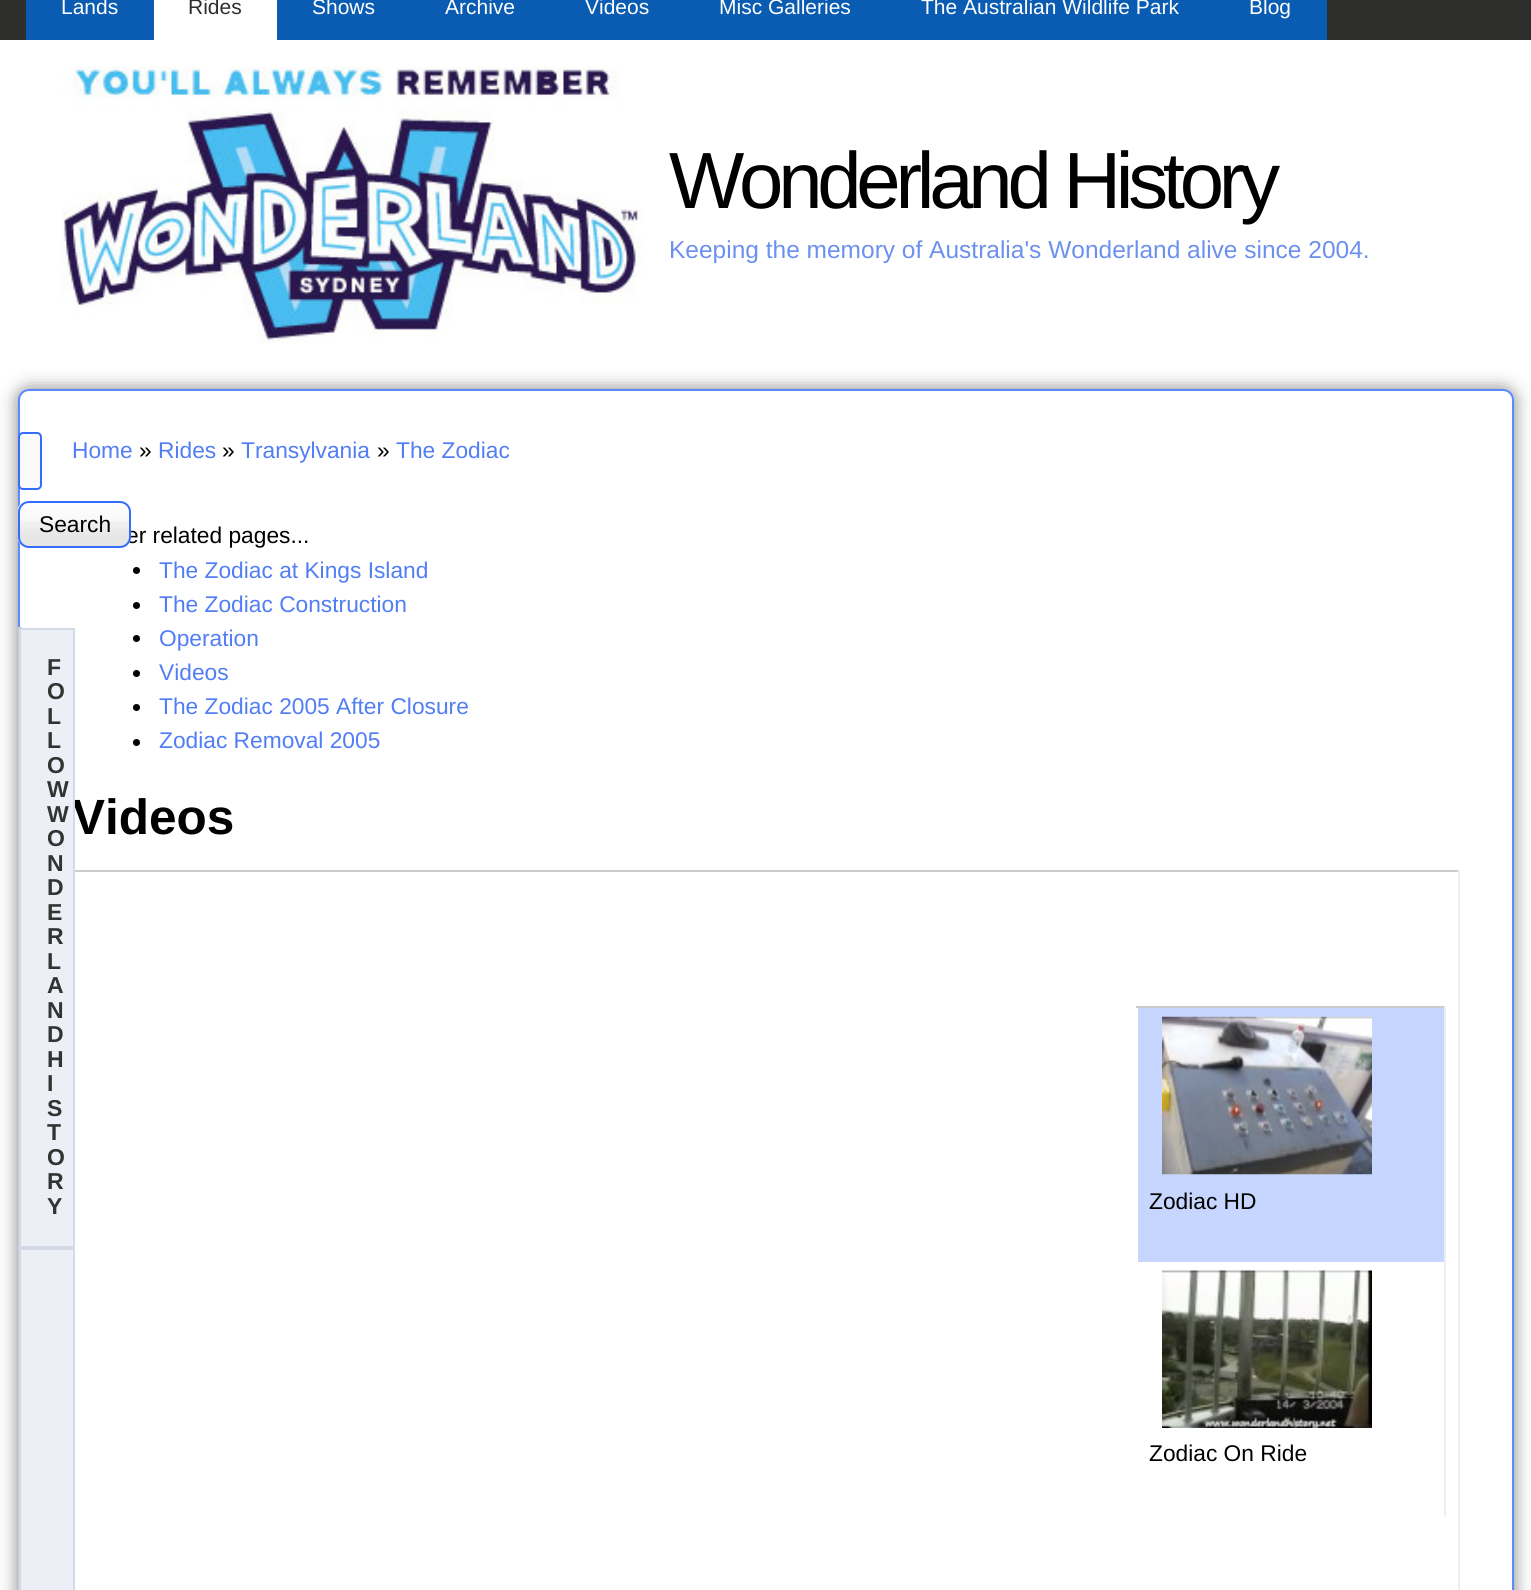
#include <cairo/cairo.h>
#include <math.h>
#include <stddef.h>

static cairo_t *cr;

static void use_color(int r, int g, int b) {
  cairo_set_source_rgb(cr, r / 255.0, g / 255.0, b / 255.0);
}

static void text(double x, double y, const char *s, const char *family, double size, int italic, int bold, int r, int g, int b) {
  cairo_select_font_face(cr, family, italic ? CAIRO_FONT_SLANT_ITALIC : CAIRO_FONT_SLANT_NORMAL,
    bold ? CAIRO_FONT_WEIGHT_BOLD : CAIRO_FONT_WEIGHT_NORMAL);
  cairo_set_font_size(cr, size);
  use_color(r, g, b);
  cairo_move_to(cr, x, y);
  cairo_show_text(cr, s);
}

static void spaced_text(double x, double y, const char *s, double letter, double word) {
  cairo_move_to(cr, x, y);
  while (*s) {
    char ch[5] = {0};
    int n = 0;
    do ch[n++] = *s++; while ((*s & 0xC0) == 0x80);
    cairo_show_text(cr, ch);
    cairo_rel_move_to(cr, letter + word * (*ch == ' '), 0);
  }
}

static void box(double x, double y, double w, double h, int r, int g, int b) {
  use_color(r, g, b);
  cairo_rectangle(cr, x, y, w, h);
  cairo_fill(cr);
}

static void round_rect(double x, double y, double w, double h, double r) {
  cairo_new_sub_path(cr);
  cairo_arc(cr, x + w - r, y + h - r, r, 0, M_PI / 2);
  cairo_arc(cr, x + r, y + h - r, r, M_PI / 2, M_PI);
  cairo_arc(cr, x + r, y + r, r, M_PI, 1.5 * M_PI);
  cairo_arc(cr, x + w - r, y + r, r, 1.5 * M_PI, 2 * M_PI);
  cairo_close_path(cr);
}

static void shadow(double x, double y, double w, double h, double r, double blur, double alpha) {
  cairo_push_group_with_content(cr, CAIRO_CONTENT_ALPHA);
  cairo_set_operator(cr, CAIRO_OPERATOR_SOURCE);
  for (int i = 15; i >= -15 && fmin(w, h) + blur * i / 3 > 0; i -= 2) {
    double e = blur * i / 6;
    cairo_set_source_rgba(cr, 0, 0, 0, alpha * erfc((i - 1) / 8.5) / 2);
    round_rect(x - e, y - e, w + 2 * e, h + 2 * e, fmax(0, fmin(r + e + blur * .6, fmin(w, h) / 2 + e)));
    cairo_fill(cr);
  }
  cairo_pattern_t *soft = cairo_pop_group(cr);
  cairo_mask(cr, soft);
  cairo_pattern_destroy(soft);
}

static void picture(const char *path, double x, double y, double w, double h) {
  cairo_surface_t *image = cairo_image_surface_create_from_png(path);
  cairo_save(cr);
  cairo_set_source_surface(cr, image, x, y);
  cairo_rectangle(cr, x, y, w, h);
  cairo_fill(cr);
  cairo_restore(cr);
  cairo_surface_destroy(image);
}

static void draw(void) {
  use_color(255, 255, 255);
  cairo_paint(cr);
  box(0, 0, 1531, 40, 46, 46, 45);
  box(26, 0, 128, 40, 9, 92, 177);
  box(154, 0, 123, 40, 255, 255, 255);
  box(277, 0, 1050, 40, 9, 92, 177);
  picture("img_01.png", 61, 66, 581, 277);
  use_color(76, 76, 76);
  shadow(18, 389, 1496, 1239, 11, 9, 0.7);
  use_color(255, 255, 255);
  round_rect(19, 390, 1494, 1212, 10);
  cairo_fill_preserve(cr);
  use_color(91, 137, 255);
  cairo_stroke(cr);
  use_color(0, 0, 0);
  cairo_arc(cr, 136.5, 570.5, 3.5, 0, 2 * M_PI);
  cairo_fill(cr);
  cairo_arc(cr, 136.5, 605.5, 3.5, 0, 2 * M_PI);
  cairo_fill(cr);
  cairo_arc(cr, 136.5, 638.5, 3.5, 0, 2 * M_PI);
  cairo_fill(cr);
  cairo_arc(cr, 136.5, 673.5, 3.5, 0, 2 * M_PI);
  cairo_fill(cr);
  cairo_arc(cr, 136.5, 707.5, 3.5, 0, 2 * M_PI);
  cairo_fill(cr);
  cairo_arc(cr, 136.5, 742.5, 3.5, 0, 2 * M_PI);
  cairo_fill(cr);
  box(72, 870, 1388, 2, 204, 204, 204);
  box(1458, 870, 2, 720, 238, 238, 238);
  box(1136, 1006, 310, 2, 204, 204, 204);
  box(1138, 1008, 306, 254, 198, 214, 255);
  picture("img_02.png", 1162, 1016, 210, 159);
  box(1444, 1006, 2, 510, 238, 238, 238);
  picture("img_03.png", 1162, 1270, 210, 158);
  use_color(250, 250, 250);
  round_rect(19, 433, 22, 56, 4);
  cairo_fill_preserve(cr);
  use_color(51, 108, 255);
  cairo_stroke(cr);
  box(18, 627, 4, 963, 204, 204, 204);
  use_color(236, 239, 246);
  cairo_rectangle(cr, 20, 1249, 54, 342);
  cairo_fill_preserve(cr);
  use_color(212, 218, 232);
  cairo_stroke(cr);
  text(61, 14, "Lands", "Liberation Sans", 21, 0, 0, 255, 255, 255);
  text(188, 14, "Rides", "Liberation Sans", 21, 0, 0, 46, 46, 45);
  text(312, 14, "Shows", "Liberation Sans", 21, 0, 0, 255, 255, 255);
  text(445, 14, "Archive", "Liberation Sans", 21, 0, 0, 255, 255, 255);
  text(585, 14, "Videos", "Liberation Sans", 21, 0, 0, 255, 255, 255);
  text(719, 14, "Misc Galleries", "Liberation Sans", 21, 0, 0, 255, 255, 255);
  text(921, 14, "The Australian Wildlife Park", "Liberation Sans", 21, 0, 0, 255, 255, 255);
  text(1249, 14, "Blog", "Liberation Sans", 21, 0, 0, 255, 255, 255);
  cairo_set_font_size(cr, 79.75);
  use_color(0, 0, 0);
  spaced_text(669, 208, "Wonderland History", -5.25, 0);
  text(669, 258, "Keeping the memory of Australia's Wonderland alive since 2004.", "Liberation Sans", 24.5, 0, 0, 108, 144, 238);
  text(72, 458, "Home", "Liberation Sans", 22.75, 0, 0, 81, 125, 245);
  text(139, 458, "»", "Liberation Sans", 22.75, 0, 0, 0, 0, 0);
  text(158, 458, "Rides", "Liberation Sans", 22.75, 0, 0, 81, 125, 245);
  text(222, 458, "»", "Liberation Sans", 22.75, 0, 0, 0, 0, 0);
  text(241, 458, "Transylvania", "Liberation Sans", 22.75, 0, 0, 81, 125, 245);
  text(377, 458, "»", "Liberation Sans", 22.75, 0, 0, 0, 0, 0);
  text(396, 458, "The Zodiac", "Liberation Sans", 22.75, 0, 0, 81, 125, 245);
  text(126, 543, "er related pages...", "Liberation Sans", 22.75, 0, 0, 0, 0, 0);
  text(159, 578, "The Zodiac at Kings Island", "Liberation Sans", 22.75, 0, 0, 81, 125, 245);
  text(159, 612, "The Zodiac Construction", "Liberation Sans", 22.75, 0, 0, 81, 125, 245);
  text(159, 646, "Operation", "Liberation Sans", 22.75, 0, 0, 81, 125, 245);
  text(159, 680, "Videos", "Liberation Sans", 22.75, 0, 0, 81, 125, 245);
  text(159, 714, "The Zodiac 2005 After Closure", "Liberation Sans", 22.75, 0, 0, 81, 125, 245);
  text(159, 748, "Zodiac Removal 2005", "Liberation Sans", 22.75, 0, 0, 81, 125, 245);
  text(72, 834, "Videos", "Liberation Sans", 49.5, 0, 1, 0, 0, 0);
  text(1149, 1209, "Zodiac HD", "Liberation Sans", 22.75, 0, 0, 0, 0, 0);
  text(1149, 1461, "Zodiac On Ride", "Liberation Sans", 22.75, 0, 0, 0, 0, 0);
  picture("img_04.png", 17, 504, 115, 44);
  round_rect(19, 502, 111, 45, 10);
  use_color(51, 108, 255);
  cairo_stroke(cr);
  text(39, 532, "Search", "Liberation Sans", 22.75, 0, 0, 0, 0, 0);
  use_color(236, 239, 246);
  cairo_rectangle(cr, 20, 629, 54, 618);
  cairo_fill_preserve(cr);
  use_color(212, 218, 232);
  cairo_stroke(cr);
  text(47, 675, "F", "Liberation Sans", 23, 0, 1, 51, 51, 51);
  text(47, 699, "O", "Liberation Sans", 23, 0, 1, 51, 51, 51);
  text(47, 724, "L", "Liberation Sans", 23, 0, 1, 51, 51, 51);
  text(47, 748, "L", "Liberation Sans", 23, 0, 1, 51, 51, 51);
  text(47, 773, "O", "Liberation Sans", 23, 0, 1, 51, 51, 51);
  text(47, 797, "W", "Liberation Sans", 23, 0, 1, 51, 51, 51);
  text(47, 822, "W", "Liberation Sans", 23, 0, 1, 51, 51, 51);
  text(47, 846, "O", "Liberation Sans", 23, 0, 1, 51, 51, 51);
  text(47, 871, "N", "Liberation Sans", 23, 0, 1, 51, 51, 51);
  text(47, 895, "D", "Liberation Sans", 23, 0, 1, 51, 51, 51);
  text(47, 920, "E", "Liberation Sans", 23, 0, 1, 51, 51, 51);
  text(47, 944, "R", "Liberation Sans", 23, 0, 1, 51, 51, 51);
  text(47, 969, "L", "Liberation Sans", 23, 0, 1, 51, 51, 51);
  text(47, 993, "A", "Liberation Sans", 23, 0, 1, 51, 51, 51);
  text(47, 1018, "N", "Liberation Sans", 23, 0, 1, 51, 51, 51);
  text(47, 1042, "D", "Liberation Sans", 23, 0, 1, 51, 51, 51);
  text(47, 1067, "H", "Liberation Sans", 23, 0, 1, 51, 51, 51);
  text(47, 1091, "I", "Liberation Sans", 23, 0, 1, 51, 51, 51);
  text(47, 1116, "S", "Liberation Sans", 23, 0, 1, 51, 51, 51);
  text(47, 1140, "T", "Liberation Sans", 23, 0, 1, 51, 51, 51);
  text(47, 1165, "O", "Liberation Sans", 23, 0, 1, 51, 51, 51);
  text(47, 1189, "R", "Liberation Sans", 23, 0, 1, 51, 51, 51);
  text(47, 1214, "Y", "Liberation Sans", 23, 0, 1, 51, 51, 51);
}

int main(void) {
  cairo_surface_t *surface = cairo_image_surface_create(CAIRO_FORMAT_RGB24, 1531, 1590);
  cr = cairo_create(surface);
  cairo_font_options_t *options = cairo_font_options_create();
  cairo_font_options_set_hint_metrics(options, CAIRO_HINT_METRICS_OFF);
  cairo_font_options_set_hint_style(options, CAIRO_HINT_STYLE_NONE);
  cairo_set_font_options(cr, options);
  cairo_set_miter_limit(cr, 4);
  draw();
  cairo_surface_write_to_png(surface, "out.png");
  cairo_font_options_destroy(options);
  cairo_destroy(cr);
  cairo_surface_destroy(surface);
  return 0;
}
